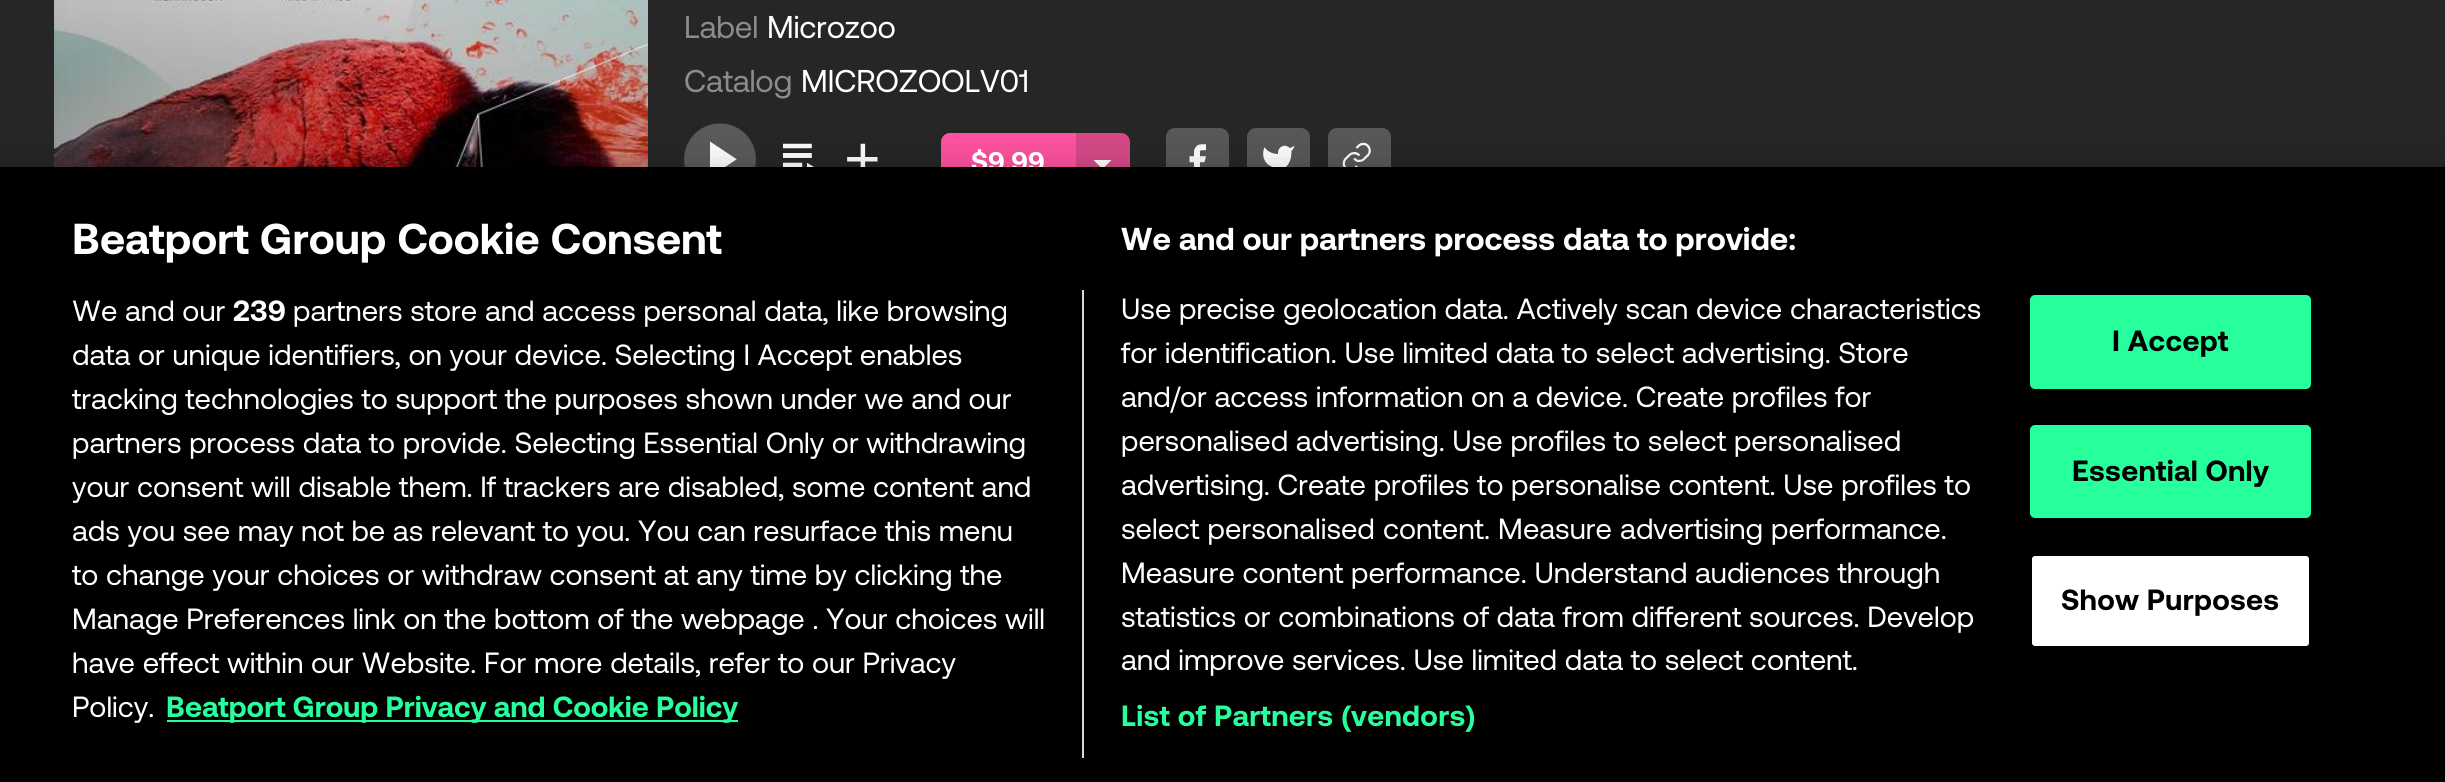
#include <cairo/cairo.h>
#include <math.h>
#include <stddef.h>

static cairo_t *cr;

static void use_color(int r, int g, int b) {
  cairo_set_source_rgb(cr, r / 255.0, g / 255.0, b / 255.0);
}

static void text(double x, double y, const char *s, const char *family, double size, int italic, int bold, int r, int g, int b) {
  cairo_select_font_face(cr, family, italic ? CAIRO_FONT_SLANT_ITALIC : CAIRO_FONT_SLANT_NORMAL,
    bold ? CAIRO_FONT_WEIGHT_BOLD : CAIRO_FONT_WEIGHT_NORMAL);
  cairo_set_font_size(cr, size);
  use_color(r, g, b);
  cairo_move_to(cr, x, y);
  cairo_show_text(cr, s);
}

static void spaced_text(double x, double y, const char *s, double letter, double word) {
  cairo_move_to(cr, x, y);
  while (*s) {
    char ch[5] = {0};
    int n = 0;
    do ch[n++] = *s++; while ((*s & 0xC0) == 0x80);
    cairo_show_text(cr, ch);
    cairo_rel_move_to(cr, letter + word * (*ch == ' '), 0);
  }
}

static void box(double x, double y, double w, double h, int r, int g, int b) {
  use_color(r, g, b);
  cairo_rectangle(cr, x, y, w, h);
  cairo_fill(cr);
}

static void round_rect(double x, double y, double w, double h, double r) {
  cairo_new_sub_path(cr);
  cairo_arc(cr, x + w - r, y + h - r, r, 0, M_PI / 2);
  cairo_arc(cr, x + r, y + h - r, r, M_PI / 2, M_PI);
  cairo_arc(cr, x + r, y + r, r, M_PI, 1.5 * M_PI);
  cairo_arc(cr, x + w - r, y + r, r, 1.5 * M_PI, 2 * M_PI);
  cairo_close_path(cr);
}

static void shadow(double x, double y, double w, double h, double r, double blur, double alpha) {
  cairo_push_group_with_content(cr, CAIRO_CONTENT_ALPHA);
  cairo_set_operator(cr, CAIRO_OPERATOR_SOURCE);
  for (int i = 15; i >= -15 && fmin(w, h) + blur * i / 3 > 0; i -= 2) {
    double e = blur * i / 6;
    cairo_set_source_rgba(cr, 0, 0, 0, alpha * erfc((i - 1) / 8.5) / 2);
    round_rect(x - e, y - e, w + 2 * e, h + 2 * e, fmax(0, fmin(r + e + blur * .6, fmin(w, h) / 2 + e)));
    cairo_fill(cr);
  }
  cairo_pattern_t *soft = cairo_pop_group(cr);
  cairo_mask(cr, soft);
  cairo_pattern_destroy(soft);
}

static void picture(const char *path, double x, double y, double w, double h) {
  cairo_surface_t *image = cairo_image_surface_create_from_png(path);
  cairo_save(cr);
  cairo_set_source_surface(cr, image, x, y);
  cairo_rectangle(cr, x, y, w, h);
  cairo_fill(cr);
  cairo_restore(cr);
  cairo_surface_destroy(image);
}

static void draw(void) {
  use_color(38, 38, 38);
  cairo_paint(cr);
  picture("img_01.png", 54, 0, 594, 167);
  picture("img_02.png", 684, 123, 72, 44);
  picture("img_03.png", 783, 143, 31, 24);
  picture("img_04.png", 847, 143, 31, 24);
  use_color(255, 83, 160);
  cairo_new_path(cr);
  cairo_move_to(cr, 950, 133);
  cairo_line_to(cr, 1076, 133);
  cairo_line_to(cr, 1076, 187);
  cairo_line_to(cr, 950, 187);
  cairo_curve_to(cr, 945, 187, 941, 183, 941, 178);
  cairo_line_to(cr, 941, 142);
  cairo_curve_to(cr, 941, 137, 945, 133, 950, 133);
  cairo_close_path(cr);
  cairo_fill(cr);
  use_color(214, 73, 136);
  cairo_new_path(cr);
  cairo_move_to(cr, 1076, 133);
  cairo_line_to(cr, 1121, 133);
  cairo_curve_to(cr, 1126, 133, 1130, 137, 1130, 142);
  cairo_line_to(cr, 1130, 178);
  cairo_curve_to(cr, 1130, 183, 1126, 187, 1121, 187);
  cairo_line_to(cr, 1076, 187);
  cairo_close_path(cr);
  cairo_fill(cr);
  use_color(255, 255, 255);
  cairo_new_path(cr);
  cairo_move_to(cr, 1093.5, 160);
  cairo_line_to(cr, 1111.5, 160);
  cairo_line_to(cr, 1102.5, 169);
  cairo_close_path(cr);
  cairo_fill(cr);
  use_color(88, 88, 88);
  round_rect(1166, 128, 63, 63, 9);
  cairo_fill(cr);
  picture("img_05.png", 1189, 144, 17, 23);
  round_rect(1247, 128, 63, 63, 9);
  cairo_fill(cr);
  picture("img_06.png", 1263, 145, 32, 22);
  round_rect(1328, 128, 63, 63, 9);
  cairo_fill(cr);
  picture("img_07.png", 1342, 142, 29, 25);
  use_color(0, 0, 0);
  shadow(0, 167, 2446, 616, 0, 20, 0.2);
  cairo_select_font_face(cr, "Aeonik", CAIRO_FONT_SLANT_NORMAL, CAIRO_FONT_WEIGHT_NORMAL);
  cairo_set_font_size(cr, 31.5);
  use_color(140, 140, 140);
  spaced_text(684, 38, "Label", -0.25, 0);
  use_color(255, 255, 255);
  spaced_text(767, 38, "Microzoo", -0.25, 0);
  use_color(140, 140, 140);
  spaced_text(684, 92, "Catalog", -0.25, 0);
  use_color(255, 255, 255);
  spaced_text(801, 92, "MICROZOOLV01", -0.25, 0);
  text(971, 171, "$9.99", "Aeonik", 27, 0, 1, 255, 255, 255);
  box(0, 167, 2445, 615, 0, 0, 0);
  cairo_set_font_size(cr, 43.25);
  use_color(255, 255, 255);
  spaced_text(72, 254, "Beatport Group Cookie Consent", 0, 0.5);
  text(1121, 250, "We and our partners process data to provide:", "Aeonik", 31.7, 0, 1, 255, 255, 255);
  text(1121, 319, "Use precise geolocation data. Actively scan device characteristics", "Aeonik", 29.25, 0, 0, 255, 255, 255);
  text(1121, 363, "for identification. Use limited data to select advertising. Store", "Aeonik", 29.25, 0, 0, 255, 255, 255);
  text(1121, 407, "and/or access information on a device. Create profiles for", "Aeonik", 29.25, 0, 0, 255, 255, 255);
  text(1121, 451, "personalised advertising. Use profiles to select personalised", "Aeonik", 29.25, 0, 0, 255, 255, 255);
  text(1121, 495, "advertising. Create profiles to personalise content. Use profiles to", "Aeonik", 29.25, 0, 0, 255, 255, 255);
  spaced_text(1121, 539, "select personalised content. Measure advertising performance.", 0, 0.5);
  text(1121, 583, "Measure content performance. Understand audiences through", "Aeonik", 29.25, 0, 0, 255, 255, 255);
  text(1121, 627, "statistics or combinations of data from different sources. Develop", "Aeonik", 29.25, 0, 0, 255, 255, 255);
  text(1121, 670, "and improve services. Use limited data to select content.", "Aeonik", 29.25, 0, 0, 255, 255, 255);
  cairo_select_font_face(cr, "Aeonik", CAIRO_FONT_SLANT_NORMAL, CAIRO_FONT_WEIGHT_BOLD);
  use_color(39, 255, 156);
  spaced_text(1121, 726, "List of Partners (vendors)", 0.3, 0);
  box(1082, 290, 2, 468, 216, 216, 216);
  text(72, 321, "We and our", "Aeonik", 29.25, 0, 0, 255, 255, 255);
  text(233, 321, "239", "Aeonik", 29.25, 0, 1, 255, 255, 255);
  text(293, 321, "partners store and access personal data, like browsing", "Aeonik", 29.25, 0, 0, 255, 255, 255);
  text(72, 365, "data or unique identifiers, on your device. Selecting I Accept enables", "Aeonik", 29.25, 0, 0, 255, 255, 255);
  text(72, 409, "tracking technologies to support the purposes shown under we and our", "Aeonik", 29.25, 0, 0, 255, 255, 255);
  text(72, 453, "partners process data to provide. Selecting Essential Only or withdrawing", "Aeonik", 29.25, 0, 0, 255, 255, 255);
  text(72, 497, "your consent will disable them. If trackers are disabled, some content and", "Aeonik", 29.25, 0, 0, 255, 255, 255);
  text(72, 541, "ads you see may not be as relevant to you. You can resurface this menu", "Aeonik", 29.25, 0, 0, 255, 255, 255);
  text(72, 585, "to change your choices or withdraw consent at any time by clicking the", "Aeonik", 29.25, 0, 0, 255, 255, 255);
  text(72, 629, "Manage Preferences link on the bottom of the webpage . Your choices will", "Aeonik", 29.25, 0, 0, 255, 255, 255);
  text(72, 673, "have effect within our Website. For more details, refer to our Privacy", "Aeonik", 29.25, 0, 0, 255, 255, 255);
  text(72, 717, "Policy.", "Aeonik", 29.25, 0, 0, 255, 255, 255);
  box(167, 720, 571, 2, 39, 255, 156);
  text(166, 717, "Beatport Group Privacy and Cookie Policy", "Aeonik", 29.25, 0, 1, 39, 255, 156);
  round_rect(2031, 296, 279, 92, 4);
  cairo_fill_preserve(cr);
  cairo_stroke(cr);
  use_color(0, 0, 0);
  spaced_text(2112, 351, "I Accept", 0.3, 0);
  use_color(39, 255, 156);
  round_rect(2031, 426, 279, 91, 4);
  cairo_fill_preserve(cr);
  cairo_stroke(cr);
  use_color(0, 0, 0);
  spaced_text(2072, 481, "Essential Only", 0.3, 0);
  use_color(255, 255, 255);
  round_rect(2031, 555, 279, 92, 4);
  cairo_fill_preserve(cr);
  use_color(0, 0, 0);
  cairo_stroke(cr);
  spaced_text(2061, 610, "Show Purposes", 0.3, 0);
}

int main(void) {
  cairo_surface_t *surface = cairo_image_surface_create(CAIRO_FORMAT_RGB24, 2445, 782);
  cr = cairo_create(surface);
  cairo_font_options_t *options = cairo_font_options_create();
  cairo_font_options_set_hint_metrics(options, CAIRO_HINT_METRICS_OFF);
  cairo_font_options_set_hint_style(options, CAIRO_HINT_STYLE_NONE);
  cairo_set_font_options(cr, options);
  cairo_set_miter_limit(cr, 4);
  draw();
  cairo_surface_write_to_png(surface, "out.png");
  cairo_font_options_destroy(options);
  cairo_destroy(cr);
  cairo_surface_destroy(surface);
  return 0;
}
